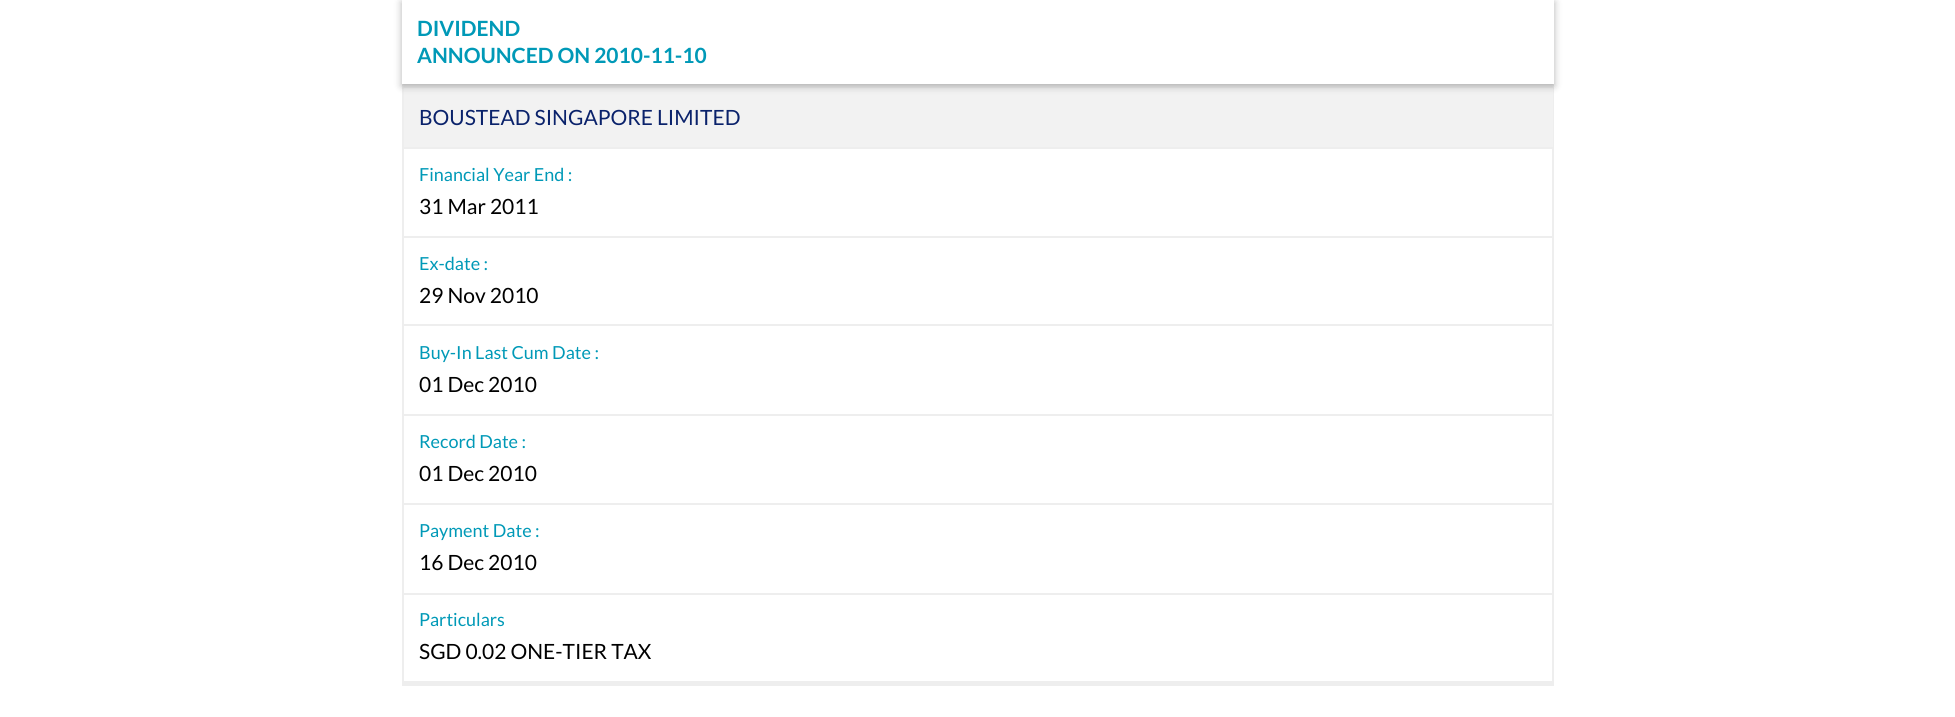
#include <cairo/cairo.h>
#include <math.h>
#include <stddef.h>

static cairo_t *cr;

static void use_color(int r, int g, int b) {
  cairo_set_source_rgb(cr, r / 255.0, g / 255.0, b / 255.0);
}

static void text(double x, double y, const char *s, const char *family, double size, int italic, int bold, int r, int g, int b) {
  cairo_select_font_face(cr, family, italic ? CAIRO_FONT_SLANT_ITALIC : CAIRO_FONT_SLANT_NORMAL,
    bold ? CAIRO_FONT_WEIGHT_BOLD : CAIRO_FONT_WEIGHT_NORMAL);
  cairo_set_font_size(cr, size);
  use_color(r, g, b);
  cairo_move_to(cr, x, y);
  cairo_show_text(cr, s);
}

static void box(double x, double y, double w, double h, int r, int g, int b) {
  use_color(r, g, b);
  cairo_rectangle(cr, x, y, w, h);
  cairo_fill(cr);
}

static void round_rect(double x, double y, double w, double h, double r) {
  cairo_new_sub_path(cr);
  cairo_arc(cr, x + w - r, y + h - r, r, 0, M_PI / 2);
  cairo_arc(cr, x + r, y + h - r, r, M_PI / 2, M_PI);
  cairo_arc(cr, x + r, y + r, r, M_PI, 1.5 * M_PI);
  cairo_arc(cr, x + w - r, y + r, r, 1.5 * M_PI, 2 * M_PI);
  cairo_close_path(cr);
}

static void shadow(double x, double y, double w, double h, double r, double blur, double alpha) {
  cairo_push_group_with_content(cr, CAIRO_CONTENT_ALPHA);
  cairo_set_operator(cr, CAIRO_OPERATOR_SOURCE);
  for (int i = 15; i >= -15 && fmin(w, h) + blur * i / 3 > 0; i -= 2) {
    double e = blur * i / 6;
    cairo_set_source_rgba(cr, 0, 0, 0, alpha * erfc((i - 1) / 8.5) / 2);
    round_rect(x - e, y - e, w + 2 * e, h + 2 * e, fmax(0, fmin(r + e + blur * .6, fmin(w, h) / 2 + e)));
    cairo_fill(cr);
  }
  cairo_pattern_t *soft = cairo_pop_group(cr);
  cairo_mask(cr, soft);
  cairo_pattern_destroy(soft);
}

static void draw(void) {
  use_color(255, 255, 255);
  cairo_paint(cr);
  cairo_rectangle(cr, 403, 85, 1150, 598);
  use_color(238, 238, 238);
  cairo_stroke(cr);
  box(404, 88, 1149, 59, 242, 242, 242);
  box(404, 86, 1149, 2, 238, 238, 238);
  cairo_save(cr);
  cairo_set_fill_rule(cr, CAIRO_FILL_RULE_EVEN_ODD);
  cairo_new_path(cr);
  cairo_move_to(cr, 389, 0);
  cairo_line_to(cr, 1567, 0);
  cairo_line_to(cr, 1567, 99);
  cairo_line_to(cr, 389, 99);
  cairo_close_path(cr);
  cairo_move_to(cr, 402, 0);
  cairo_line_to(cr, 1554, 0);
  cairo_line_to(cr, 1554, 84);
  cairo_line_to(cr, 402, 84);
  cairo_close_path(cr);
  cairo_clip(cr);
  use_color(0, 0, 0);
  shadow(402, 2, 1152, 84, 0, 4, 0.3);
  cairo_restore(cr);
  box(404, 147, 1149, 2, 238, 238, 238);
  box(404, 236, 1149, 2, 238, 238, 238);
  box(404, 324, 1149, 2, 238, 238, 238);
  box(404, 414, 1149, 2, 238, 238, 238);
  box(404, 503, 1149, 2, 238, 238, 238);
  box(404, 593, 1149, 2, 238, 238, 238);
  box(404, 681, 1149, 1, 238, 238, 238);
  box(402, 684, 1152, 2, 238, 238, 238);
  text(417, 36, "DIVIDEND", "Lato", 21, 0, 1, 0, 153, 183);
  text(417, 63, "ANNOUNCED ON 2010-11-10", "Lato", 21, 0, 1, 0, 153, 183);
  text(419, 125, "BOUSTEAD SINGAPORE LIMITED", "Lato", 21, 0, 0, 10, 34, 107);
  text(419, 181, "Financial Year End :", "Lato", 18, 0, 0, 0, 153, 183);
  text(419, 214, "31 Mar 2011", "Lato", 21, 0, 0, 0, 0, 0);
  text(419, 270, "Ex-date :", "Lato", 18, 0, 0, 0, 153, 183);
  text(419, 303, "29 Nov 2010", "Lato", 21, 0, 0, 0, 0, 0);
  text(419, 359, "Buy-In Last Cum Date :", "Lato", 18, 0, 0, 0, 153, 183);
  text(419, 392, "01 Dec 2010", "Lato", 21, 0, 0, 0, 0, 0);
  text(419, 448, "Record Date :", "Lato", 18, 0, 0, 0, 153, 183);
  text(419, 481, "01 Dec 2010", "Lato", 21, 0, 0, 0, 0, 0);
  text(419, 537, "Payment Date :", "Lato", 18, 0, 0, 0, 153, 183);
  text(419, 570, "16 Dec 2010", "Lato", 21, 0, 0, 0, 0, 0);
  text(419, 626, "Particulars", "Lato", 18, 0, 0, 0, 153, 183);
  text(419, 659, "SGD 0.02 ONE-TIER TAX", "Lato", 21, 0, 0, 0, 0, 0);
}

int main(void) {
  cairo_surface_t *surface = cairo_image_surface_create(CAIRO_FORMAT_RGB24, 1955, 717);
  cr = cairo_create(surface);
  cairo_font_options_t *options = cairo_font_options_create();
  cairo_font_options_set_hint_metrics(options, CAIRO_HINT_METRICS_OFF);
  cairo_font_options_set_hint_style(options, CAIRO_HINT_STYLE_NONE);
  cairo_set_font_options(cr, options);
  cairo_set_miter_limit(cr, 4);
  draw();
  cairo_surface_write_to_png(surface, "out.png");
  cairo_font_options_destroy(options);
  cairo_destroy(cr);
  cairo_surface_destroy(surface);
  return 0;
}
